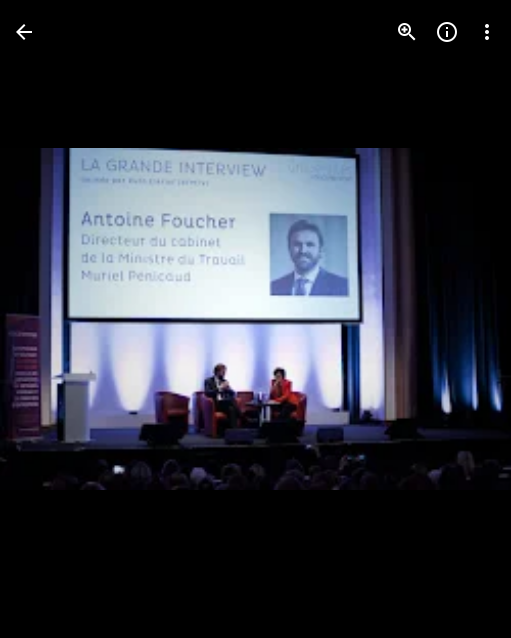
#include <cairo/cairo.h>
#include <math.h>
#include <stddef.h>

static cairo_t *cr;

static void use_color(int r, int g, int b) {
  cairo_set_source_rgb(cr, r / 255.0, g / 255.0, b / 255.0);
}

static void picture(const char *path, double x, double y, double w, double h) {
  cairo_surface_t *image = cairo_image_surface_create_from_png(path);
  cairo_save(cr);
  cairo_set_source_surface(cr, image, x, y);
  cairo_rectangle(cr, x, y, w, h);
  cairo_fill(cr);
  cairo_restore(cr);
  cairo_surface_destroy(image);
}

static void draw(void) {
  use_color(0, 0, 0);
  cairo_paint(cr);
  picture("img_01.png", 16, 24, 16, 16);
  picture("img_02.png", 398, 23, 18, 18);
  picture("img_03.png", 437, 22, 20, 20);
  picture("img_04.png", 485, 24, 4, 16);
  picture("img_05.png", 0, 148, 511, 342);
}

int main(void) {
  cairo_surface_t *surface = cairo_image_surface_create(CAIRO_FORMAT_RGB24, 511, 638);
  cr = cairo_create(surface);
  cairo_font_options_t *options = cairo_font_options_create();
  cairo_font_options_set_hint_metrics(options, CAIRO_HINT_METRICS_OFF);
  cairo_font_options_set_hint_style(options, CAIRO_HINT_STYLE_NONE);
  cairo_set_font_options(cr, options);
  cairo_set_miter_limit(cr, 4);
  draw();
  cairo_surface_write_to_png(surface, "out.png");
  cairo_font_options_destroy(options);
  cairo_destroy(cr);
  cairo_surface_destroy(surface);
  return 0;
}
